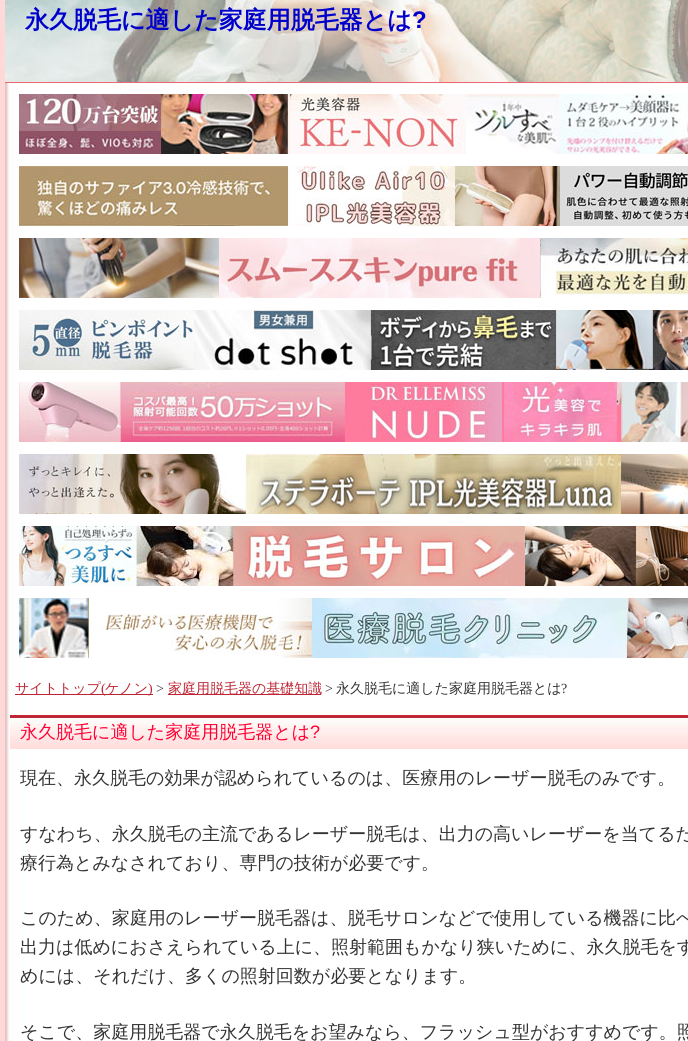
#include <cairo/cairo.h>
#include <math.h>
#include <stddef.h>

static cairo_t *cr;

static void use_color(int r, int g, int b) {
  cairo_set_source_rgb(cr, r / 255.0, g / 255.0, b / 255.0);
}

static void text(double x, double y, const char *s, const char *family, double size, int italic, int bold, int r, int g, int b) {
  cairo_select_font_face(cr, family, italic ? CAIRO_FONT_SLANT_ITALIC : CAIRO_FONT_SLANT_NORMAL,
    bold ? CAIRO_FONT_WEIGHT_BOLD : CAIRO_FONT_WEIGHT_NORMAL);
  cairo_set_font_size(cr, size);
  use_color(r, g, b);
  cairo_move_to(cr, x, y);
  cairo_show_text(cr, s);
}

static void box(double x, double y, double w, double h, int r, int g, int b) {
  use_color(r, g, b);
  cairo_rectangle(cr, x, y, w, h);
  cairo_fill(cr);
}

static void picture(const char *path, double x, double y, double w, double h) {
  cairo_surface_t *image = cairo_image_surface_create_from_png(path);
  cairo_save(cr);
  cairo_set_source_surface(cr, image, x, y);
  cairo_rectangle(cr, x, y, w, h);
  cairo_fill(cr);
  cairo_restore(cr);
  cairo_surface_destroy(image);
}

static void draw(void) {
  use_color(255, 217, 215);
  cairo_paint(cr);
  picture("img_01.png", 5, 83, 683, 958);
  picture("img_02.png", 5, 0, 683, 82);
  box(5, 82, 683, 1, 235, 106, 113);
  picture("img_03.png", 19, 94, 669, 60);
  picture("img_04.png", 19, 166, 669, 60);
  picture("img_05.png", 19, 238, 669, 60);
  picture("img_06.png", 19, 310, 669, 60);
  picture("img_07.png", 19, 382, 669, 60);
  picture("img_08.png", 19, 454, 669, 60);
  picture("img_09.png", 19, 526, 669, 60);
  picture("img_10.png", 19, 598, 669, 60);
  box(15, 694, 138, 1, 189, 37, 52);
  box(168, 694, 153, 1, 189, 37, 52);
  picture("img_11.png", 10, 715, 678, 34);
  text(25, 28, "永久脱毛に適した家庭用脱毛器とは", "WenQuanYi Zen Hei", 24, 0, 1, 0, 0, 204);
  text(412, 28, "?", "Liberation Sans", 24, 0, 1, 0, 0, 204);
  text(15, 693, "サイトトップ", "WenQuanYi Zen Hei Medium", 14, 0, 0, 189, 37, 52);
  text(101, 693, "(", "Liberation Serif", 14, 0, 0, 189, 37, 52);
  text(105, 693, "ケノン", "WenQuanYi Zen Hei Medium", 14, 0, 0, 189, 37, 52);
  text(148, 693, ")", "Liberation Serif", 14, 0, 0, 189, 37, 52);
  text(156, 693, ">", "Liberation Serif", 14, 0, 0, 51, 51, 51);
  text(168, 693, "家庭用脱毛器の基礎知識", "WenQuanYi Zen Hei Medium", 14, 0, 0, 189, 37, 52);
  text(325, 693, ">", "Liberation Serif", 14, 0, 0, 51, 51, 51);
  text(336, 693, "永久脱毛に適した家庭用脱毛器とは", "WenQuanYi Zen Hei Medium", 14, 0, 0, 51, 51, 51);
  text(561, 693, "?", "Liberation Serif", 14, 0, 0, 51, 51, 51);
  text(20, 738, "永久脱毛に適した家庭用脱毛器とは", "WenQuanYi Zen Hei Medium", 18, 0, 0, 255, 0, 51);
  text(310, 738, "?", "Liberation Sans", 18, 0, 0, 255, 0, 51);
  text(20, 784, "現在、永久脱毛の効果が認められているのは、医療用のレーザー脱毛のみです。", "WenQuanYi Zen Hei Medium", 18, 0, 0, 51, 51, 51);
  text(20, 840, "すなわち、永久脱毛の主流であるレーザー脱毛は、出力の高いレーザーを当てるた", "WenQuanYi Zen Hei Medium", 18, 0, 0, 51, 51, 51);
  text(20, 869, "療行為とみなされており、専門の技術が必要です。", "WenQuanYi Zen Hei Medium", 18, 0, 0, 51, 51, 51);
  text(20, 924, "このため、家庭用のレーザー脱毛器は、脱毛サロンなどで使用している機器に比べ", "WenQuanYi Zen Hei Medium", 18, 0, 0, 51, 51, 51);
  text(20, 953, "出力は低めにおさえられている上に、照射範囲もかなり狭いために、永久脱毛をす", "WenQuanYi Zen Hei Medium", 18, 0, 0, 51, 51, 51);
  text(20, 982, "めには、それだけ、多くの照射回数が必要となります。", "WenQuanYi Zen Hei Medium", 18, 0, 0, 51, 51, 51);
  text(20, 1038, "そこで、家庭用脱毛器で永久脱毛をお望みなら、フラッシュ型がおすすめです。照", "WenQuanYi Zen Hei Medium", 18, 0, 0, 51, 51, 51);
}

int main(void) {
  cairo_surface_t *surface = cairo_image_surface_create(CAIRO_FORMAT_RGB24, 688, 1041);
  cr = cairo_create(surface);
  cairo_font_options_t *options = cairo_font_options_create();
  cairo_font_options_set_hint_metrics(options, CAIRO_HINT_METRICS_OFF);
  cairo_font_options_set_hint_style(options, CAIRO_HINT_STYLE_NONE);
  cairo_set_font_options(cr, options);
  cairo_set_miter_limit(cr, 4);
  draw();
  cairo_surface_write_to_png(surface, "out.png");
  cairo_font_options_destroy(options);
  cairo_destroy(cr);
  cairo_surface_destroy(surface);
  return 0;
}
